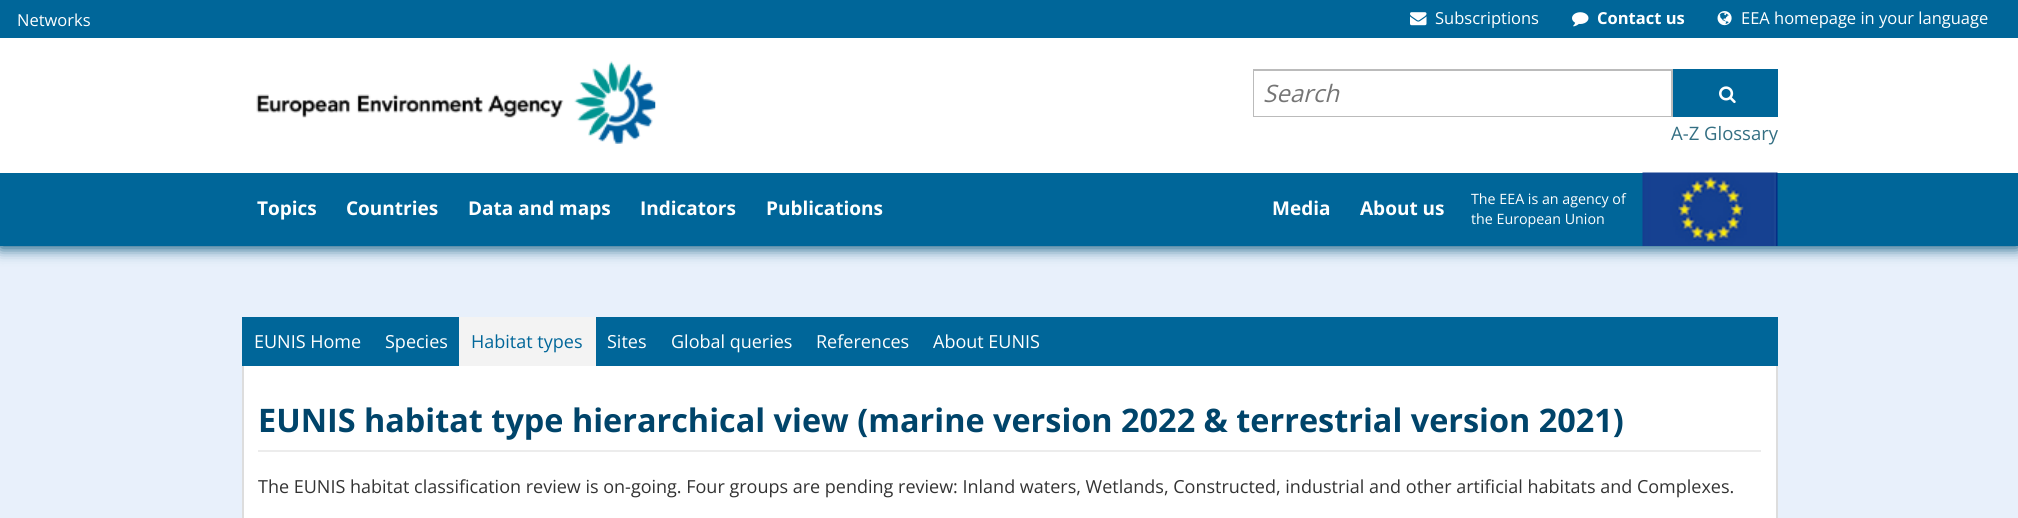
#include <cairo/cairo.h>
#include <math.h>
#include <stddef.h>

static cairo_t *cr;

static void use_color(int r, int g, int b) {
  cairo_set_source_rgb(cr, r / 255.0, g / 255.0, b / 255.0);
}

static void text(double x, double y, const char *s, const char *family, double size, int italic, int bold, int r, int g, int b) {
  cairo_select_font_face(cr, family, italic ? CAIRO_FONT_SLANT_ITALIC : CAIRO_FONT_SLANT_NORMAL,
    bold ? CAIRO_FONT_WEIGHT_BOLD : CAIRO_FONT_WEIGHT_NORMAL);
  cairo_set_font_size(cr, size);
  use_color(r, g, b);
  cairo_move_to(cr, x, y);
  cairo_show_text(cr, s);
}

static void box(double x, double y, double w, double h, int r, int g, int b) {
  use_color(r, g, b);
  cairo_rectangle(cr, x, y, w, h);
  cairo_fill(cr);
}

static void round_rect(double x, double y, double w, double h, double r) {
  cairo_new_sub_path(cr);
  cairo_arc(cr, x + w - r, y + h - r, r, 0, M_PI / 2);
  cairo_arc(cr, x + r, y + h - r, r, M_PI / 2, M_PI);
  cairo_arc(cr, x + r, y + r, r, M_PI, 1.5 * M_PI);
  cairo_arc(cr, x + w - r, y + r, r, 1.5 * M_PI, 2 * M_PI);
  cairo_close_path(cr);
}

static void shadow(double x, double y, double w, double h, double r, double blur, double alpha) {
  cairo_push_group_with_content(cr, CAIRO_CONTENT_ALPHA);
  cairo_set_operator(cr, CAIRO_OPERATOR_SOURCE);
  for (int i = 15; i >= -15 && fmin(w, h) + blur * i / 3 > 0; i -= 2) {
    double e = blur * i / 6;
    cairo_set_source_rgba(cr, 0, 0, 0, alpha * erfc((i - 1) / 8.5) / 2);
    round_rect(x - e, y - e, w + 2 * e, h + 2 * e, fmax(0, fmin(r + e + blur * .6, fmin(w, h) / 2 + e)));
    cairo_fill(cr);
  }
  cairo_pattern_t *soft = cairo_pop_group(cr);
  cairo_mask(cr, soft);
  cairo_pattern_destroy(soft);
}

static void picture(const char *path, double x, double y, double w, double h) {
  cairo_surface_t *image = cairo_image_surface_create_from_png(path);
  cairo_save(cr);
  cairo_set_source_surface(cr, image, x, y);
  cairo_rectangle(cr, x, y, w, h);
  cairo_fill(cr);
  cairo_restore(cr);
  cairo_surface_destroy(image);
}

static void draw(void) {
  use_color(232, 240, 251);
  cairo_paint(cr);
  use_color(0, 80, 120);
  shadow(0, 2, 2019, 246, 0, 7.5, 1);
  box(0, 38, 2018, 135, 255, 255, 255);
  box(0, 0, 2018, 38, 0, 102, 153);
  picture("img_01.png", 1410, 12, 17, 14);
  picture("img_02.png", 1572, 12, 17, 15);
  picture("img_03.png", 1717, 11, 15, 15);
  picture("img_04.png", 256, 61, 400, 83);
  cairo_rectangle(cr, 1254, 70, 418, 46);
  use_color(187, 187, 187);
  cairo_stroke(cr);
  box(1254, 71, 417, 45, 255, 255, 255);
  box(1673, 69, 105, 48, 0, 102, 153);
  picture("img_05.png", 1719, 86, 17, 18);
  box(0, 173, 2018, 73, 0, 102, 153);
  picture("img_06.png", 1642, 172, 136, 74);
  box(244, 366, 1532, 152, 255, 255, 255);
  box(242, 317, 1536, 49, 0, 102, 153);
  box(459, 317, 137, 49, 243, 243, 243);
  box(1776, 366, 2, 152, 221, 221, 221);
  box(242, 366, 2, 152, 221, 221, 221);
  box(258, 450, 1503, 2, 236, 236, 236);
  text(17, 26, "Networks", "Open Sans", 16.5, 0, 0, 255, 255, 255);
  text(1435, 24, "Subscriptions", "Open Sans", 16.5, 0, 0, 255, 255, 255);
  text(1597, 24, "Contact us", "Open Sans", 16.5, 0, 1, 255, 255, 255);
  text(1741, 24, "EEA homepage in your language", "Open Sans", 16.5, 0, 0, 255, 255, 255);
  text(1263, 102, "Search", "Open Sans", 24, 1, 0, 117, 117, 117);
  text(1671, 140, "A-Z Glossary", "Open Sans", 18.5, 0, 0, 52, 111, 131);
  text(257, 215, "Topics", "Open Sans", 19, 0, 1, 255, 255, 255);
  text(346, 215, "Countries", "Open Sans", 19, 0, 1, 255, 255, 255);
  text(468, 215, "Data and maps", "Open Sans", 19, 0, 1, 255, 255, 255);
  text(640, 215, "Indicators", "Open Sans", 19, 0, 1, 255, 255, 255);
  text(766, 215, "Publications", "Open Sans", 19, 0, 1, 255, 255, 255);
  text(1272, 215, "Media", "Open Sans", 19, 0, 1, 255, 255, 255);
  text(1360, 215, "About us", "Open Sans", 19, 0, 1, 255, 255, 255);
  text(1471, 204, "The EEA is an agency of", "Open Sans", 14.25, 0, 0, 255, 255, 255);
  text(1471, 224, "the European Union", "Open Sans", 14.25, 0, 0, 255, 255, 255);
  text(254, 348, "EUNIS Home", "Open Sans", 18, 0, 0, 255, 255, 255);
  text(385, 348, "Species", "Open Sans", 18, 0, 0, 255, 255, 255);
  text(471, 348, "Habitat types", "Open Sans", 18, 0, 0, 0, 102, 153);
  text(607, 348, "Sites", "Open Sans", 18, 0, 0, 255, 255, 255);
  text(671, 348, "Global queries", "Open Sans", 18, 0, 0, 255, 255, 255);
  text(816, 348, "References", "Open Sans", 18, 0, 0, 255, 255, 255);
  text(933, 348, "About EUNIS", "Open Sans", 18, 0, 0, 255, 255, 255);
  text(258, 432, "EUNIS habitat type hierarchical view (marine version 2022 & terrestrial version 2021)", "Open Sans", 32.4, 0, 1, 0, 68, 106);
  text(258, 493, "The EUNIS habitat classification review is on-going. Four groups are pending review: Inland waters, Wetlands, Constructed, industrial and other artificial habitats and Complexes.", "Open Sans", 18, 0, 0, 51, 51, 51);
}

int main(void) {
  cairo_surface_t *surface = cairo_image_surface_create(CAIRO_FORMAT_RGB24, 2018, 518);
  cr = cairo_create(surface);
  cairo_font_options_t *options = cairo_font_options_create();
  cairo_font_options_set_hint_metrics(options, CAIRO_HINT_METRICS_OFF);
  cairo_font_options_set_hint_style(options, CAIRO_HINT_STYLE_NONE);
  cairo_set_font_options(cr, options);
  cairo_set_miter_limit(cr, 4);
  draw();
  cairo_surface_write_to_png(surface, "out.png");
  cairo_font_options_destroy(options);
  cairo_destroy(cr);
  cairo_surface_destroy(surface);
  return 0;
}
